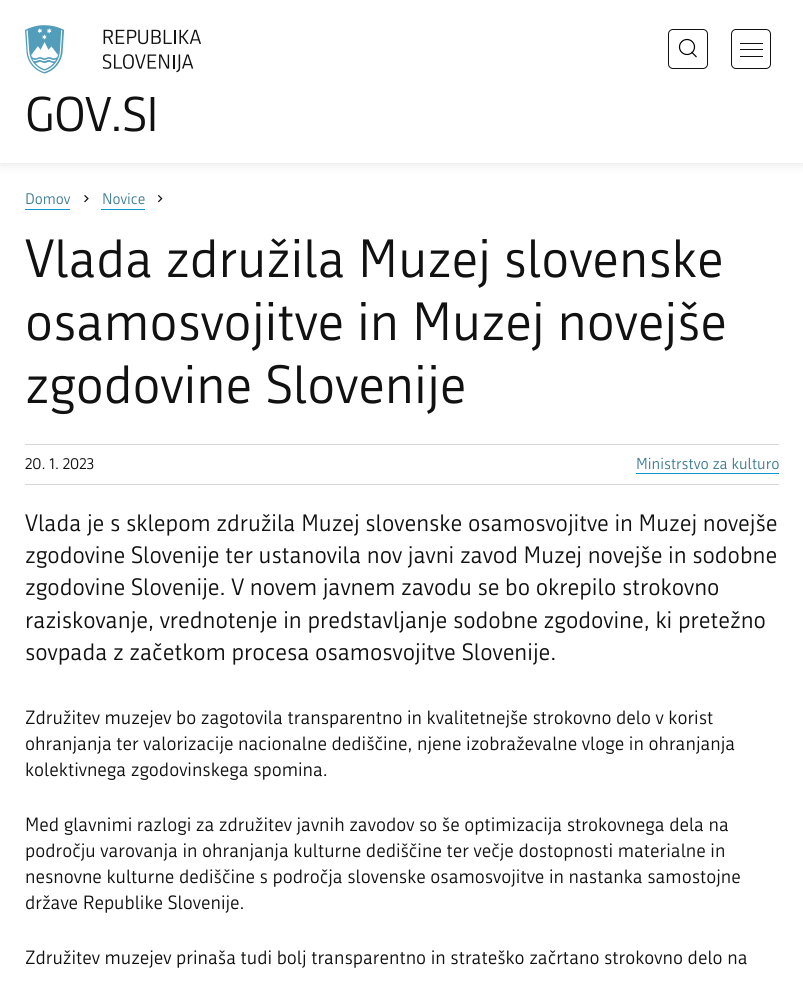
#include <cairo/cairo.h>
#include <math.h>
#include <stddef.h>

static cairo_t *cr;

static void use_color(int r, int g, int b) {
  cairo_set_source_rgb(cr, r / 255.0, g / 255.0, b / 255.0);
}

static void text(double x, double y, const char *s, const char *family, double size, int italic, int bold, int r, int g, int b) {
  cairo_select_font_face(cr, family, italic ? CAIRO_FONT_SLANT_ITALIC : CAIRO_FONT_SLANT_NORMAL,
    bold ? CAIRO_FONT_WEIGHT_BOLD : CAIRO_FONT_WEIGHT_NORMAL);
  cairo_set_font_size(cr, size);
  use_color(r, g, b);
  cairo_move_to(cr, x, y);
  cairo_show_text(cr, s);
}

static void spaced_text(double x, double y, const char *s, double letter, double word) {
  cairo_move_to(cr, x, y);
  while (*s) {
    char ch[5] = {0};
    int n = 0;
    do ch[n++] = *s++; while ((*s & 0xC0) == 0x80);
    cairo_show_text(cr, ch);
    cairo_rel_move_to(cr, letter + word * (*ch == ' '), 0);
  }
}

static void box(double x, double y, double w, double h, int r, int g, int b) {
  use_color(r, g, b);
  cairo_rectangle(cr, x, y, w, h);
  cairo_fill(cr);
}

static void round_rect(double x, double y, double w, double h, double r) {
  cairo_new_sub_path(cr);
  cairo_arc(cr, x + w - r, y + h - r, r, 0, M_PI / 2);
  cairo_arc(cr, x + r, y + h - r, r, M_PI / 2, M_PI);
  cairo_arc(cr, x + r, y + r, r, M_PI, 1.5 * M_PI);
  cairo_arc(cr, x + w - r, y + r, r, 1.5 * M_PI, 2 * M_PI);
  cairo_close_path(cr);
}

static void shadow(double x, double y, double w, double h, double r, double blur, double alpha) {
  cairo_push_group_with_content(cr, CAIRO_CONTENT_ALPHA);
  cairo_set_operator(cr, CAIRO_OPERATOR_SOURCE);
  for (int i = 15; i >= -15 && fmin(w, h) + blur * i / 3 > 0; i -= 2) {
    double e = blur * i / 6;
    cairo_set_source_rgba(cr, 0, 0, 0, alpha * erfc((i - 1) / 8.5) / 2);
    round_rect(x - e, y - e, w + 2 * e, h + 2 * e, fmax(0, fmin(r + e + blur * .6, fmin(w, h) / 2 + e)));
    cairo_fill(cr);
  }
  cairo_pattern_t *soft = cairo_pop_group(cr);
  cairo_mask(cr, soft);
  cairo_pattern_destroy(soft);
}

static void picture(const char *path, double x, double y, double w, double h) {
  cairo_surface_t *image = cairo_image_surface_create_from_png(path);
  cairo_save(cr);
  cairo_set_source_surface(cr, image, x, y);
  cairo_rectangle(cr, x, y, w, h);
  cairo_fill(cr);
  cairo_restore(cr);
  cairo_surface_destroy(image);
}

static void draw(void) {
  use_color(255, 255, 255);
  cairo_paint(cr);
  use_color(0, 0, 0);
  shadow(0, 0, 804, 163, 0, 6, 0.12);
  box(0, 0, 803, 163, 255, 255, 255);
  round_rect(668.5, 29.5, 39, 39, 4.5);
  use_color(17, 17, 17);
  cairo_set_line_width(cr, 1);
  cairo_stroke(cr);
  cairo_arc(cr, 687, 47, 7.5, 0, 2 * M_PI);
  use_color(0, 0, 0);
  cairo_set_line_width(cr, 1.2);
  cairo_stroke(cr);
  cairo_new_path(cr);
  cairo_move_to(cr, 691.5, 52);
  cairo_line_to(cr, 696.5, 57);
  cairo_stroke(cr);
  round_rect(731.5, 29.5, 39, 39, 4.5);
  use_color(17, 17, 17);
  cairo_set_line_width(cr, 1);
  cairo_stroke(cr);
  box(740, 56, 23, 1, 17, 17, 17);
  box(740, 43, 23, 1, 17, 17, 17);
  box(740, 49, 23, 1, 17, 17, 17);
  picture("img_01.png", 25, 25, 176, 49);
  box(25, 209, 45, 1, 13, 150, 202);
  picture("img_02.png", 84, 195, 5, 8);
  box(101, 209, 44, 1, 13, 150, 202);
  picture("img_03.png", 158, 194, 5, 9);
  box(25, 444, 754, 1, 215, 215, 215);
  box(25, 484, 754, 1, 215, 215, 215);
  box(636, 473, 143, 1, 13, 150, 202);
  cairo_select_font_face(cr, "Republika", CAIRO_FONT_SLANT_NORMAL, CAIRO_FONT_WEIGHT_NORMAL);
  cairo_set_font_size(cr, 47.5);
  use_color(17, 17, 17);
  spaced_text(25, 131, "GOV.SI", -1, 0);
  text(25, 204, "Domov", "Republika", 15, 0, 0, 62, 124, 148);
  text(102, 204, "Novice", "Republika", 15, 0, 0, 62, 124, 148);
  text(25, 277, "Vlada združila Muzej slovenske", "Republika", 52.5, 0, 0, 17, 17, 17);
  text(25, 340, "osamosvojitve in Muzej novejše", "Republika", 52.5, 0, 0, 17, 17, 17);
  text(25, 403, "zgodovine Slovenije", "Republika", 52.5, 0, 0, 17, 17, 17);
  text(25, 469, "20. 1. 2023", "Republika", 15.5, 0, 0, 17, 17, 17);
  text(636, 469, "Ministrstvo za kulturo", "Republika", 15.5, 0, 0, 62, 124, 148);
  text(25, 531, "Vlada je s sklepom združila Muzej slovenske osamosvojitve in Muzej novejše", "Republika", 23.15, 0, 0, 17, 17, 17);
  text(25, 563, "zgodovine Slovenije ter ustanovila nov javni zavod Muzej novejše in sodobne", "Republika", 23.15, 0, 0, 17, 17, 17);
  text(25, 595, "zgodovine Slovenije. V novem javnem zavodu se bo okrepilo strokovno", "Republika", 23.15, 0, 0, 17, 17, 17);
  text(25, 628, "raziskovanje, vrednotenje in predstavljanje sodobne zgodovine, ki pretežno", "Republika", 23.15, 0, 0, 17, 17, 17);
  text(25, 660, "sovpada z začetkom procesa osamosvojitve Slovenije.", "Republika", 23.15, 0, 0, 17, 17, 17);
  text(25, 724, "Združitev muzejev bo zagotovila transparentno in kvalitetnejše strokovno delo v korist", "Republika", 18.75, 0, 0, 17, 17, 17);
  text(25, 750, "ohranjanja ter valorizacije nacionalne dediščine, njene izobraževalne vloge in ohranjanja", "Republika", 18.75, 0, 0, 17, 17, 17);
  text(25, 776, "kolektivnega zgodovinskega spomina.", "Republika", 18.75, 0, 0, 17, 17, 17);
  text(25, 831, "Med glavnimi razlogi za združitev javnih zavodov so še optimizacija strokovnega dela na", "Republika", 18.75, 0, 0, 17, 17, 17);
  text(25, 857, "področju varovanja in ohranjanja kulturne dediščine ter večje dostopnosti materialne in", "Republika", 18.75, 0, 0, 17, 17, 17);
  text(25, 883, "nesnovne kulturne dediščine s področja slovenske osamosvojitve in nastanka samostojne", "Republika", 18.75, 0, 0, 17, 17, 17);
  text(25, 909, "države Republike Slovenije.", "Republika", 18.75, 0, 0, 17, 17, 17);
  text(25, 964, "Združitev muzejev prinaša tudi bolj transparentno in strateško začrtano strokovno delo na", "Republika", 18.75, 0, 0, 17, 17, 17);
}

int main(void) {
  cairo_surface_t *surface = cairo_image_surface_create(CAIRO_FORMAT_RGB24, 803, 983);
  cr = cairo_create(surface);
  cairo_font_options_t *options = cairo_font_options_create();
  cairo_font_options_set_hint_metrics(options, CAIRO_HINT_METRICS_OFF);
  cairo_font_options_set_hint_style(options, CAIRO_HINT_STYLE_NONE);
  cairo_set_font_options(cr, options);
  cairo_set_miter_limit(cr, 4);
  draw();
  cairo_surface_write_to_png(surface, "out.png");
  cairo_font_options_destroy(options);
  cairo_destroy(cr);
  cairo_surface_destroy(surface);
  return 0;
}
